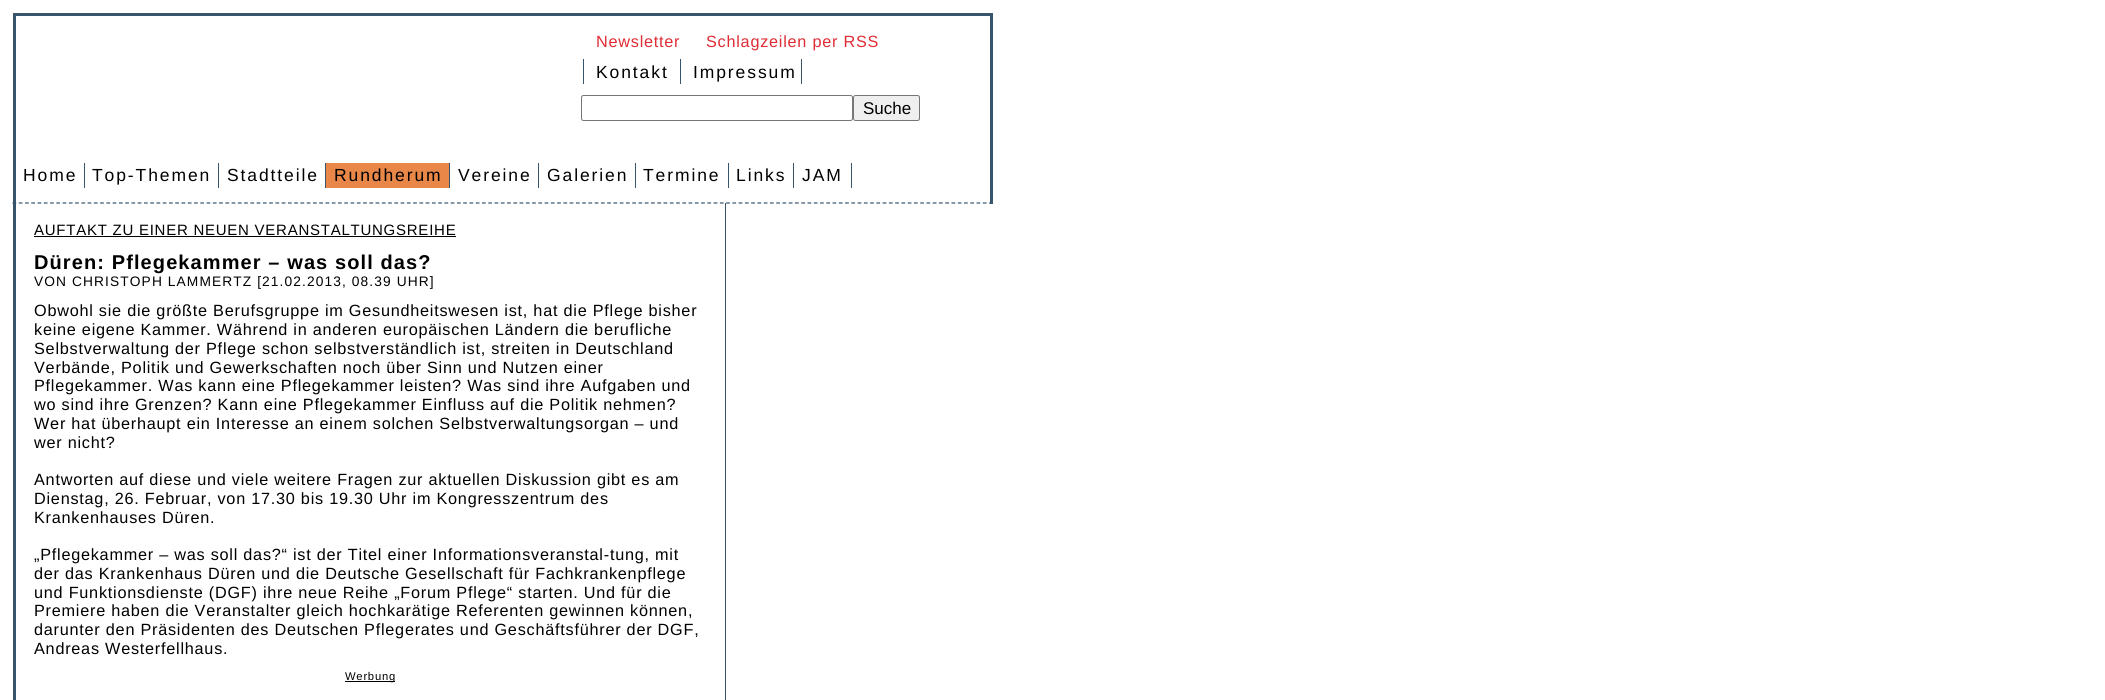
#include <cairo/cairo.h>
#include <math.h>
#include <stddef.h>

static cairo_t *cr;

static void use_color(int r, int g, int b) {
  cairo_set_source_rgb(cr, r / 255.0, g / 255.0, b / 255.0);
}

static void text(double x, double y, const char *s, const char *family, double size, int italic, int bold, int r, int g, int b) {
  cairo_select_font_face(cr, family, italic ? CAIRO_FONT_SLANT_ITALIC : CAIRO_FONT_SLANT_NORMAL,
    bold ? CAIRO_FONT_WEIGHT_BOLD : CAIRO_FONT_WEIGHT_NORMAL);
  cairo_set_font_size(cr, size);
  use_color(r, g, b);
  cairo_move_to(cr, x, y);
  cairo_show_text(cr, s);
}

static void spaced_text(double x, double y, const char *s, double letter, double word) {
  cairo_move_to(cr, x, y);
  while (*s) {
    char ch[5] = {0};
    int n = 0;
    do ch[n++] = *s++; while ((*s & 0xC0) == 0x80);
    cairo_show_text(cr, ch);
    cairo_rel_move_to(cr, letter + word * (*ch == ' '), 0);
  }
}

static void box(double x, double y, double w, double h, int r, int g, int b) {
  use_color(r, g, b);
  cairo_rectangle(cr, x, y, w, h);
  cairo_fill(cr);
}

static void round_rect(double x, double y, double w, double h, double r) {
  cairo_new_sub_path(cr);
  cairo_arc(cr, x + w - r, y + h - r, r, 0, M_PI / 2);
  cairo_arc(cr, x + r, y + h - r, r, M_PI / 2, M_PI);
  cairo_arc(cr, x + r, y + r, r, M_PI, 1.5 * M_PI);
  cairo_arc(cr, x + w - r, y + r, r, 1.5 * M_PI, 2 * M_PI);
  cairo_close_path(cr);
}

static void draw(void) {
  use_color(255, 255, 255);
  cairo_paint(cr);
  box(13, 13, 980, 3, 56, 85, 110);
  box(990, 13, 3, 191, 56, 85, 110);
  cairo_new_path(cr);
  cairo_move_to(cr, 12.5, 203);
  cairo_line_to(cr, 992.5, 203);
  cairo_set_line_width(cr, 1.2);
  cairo_set_dash(cr, (double[]){3.75, 2.51}, 2, 0);
  cairo_stroke(cr);
  box(13, 13, 3, 687, 56, 85, 110);
  box(583, 59, 1, 25, 56, 85, 110);
  box(680, 59, 1, 25, 56, 85, 110);
  box(801, 59, 1, 25, 56, 85, 110);
  round_rect(581.5, 95.5, 271, 25, 2);
  use_color(118, 118, 118);
  cairo_set_line_width(cr, 1);
  cairo_set_dash(cr, NULL, 0, 0);
  cairo_stroke(cr);
  use_color(239, 239, 239);
  round_rect(853.5, 95.5, 66, 25, 2);
  cairo_fill_preserve(cr);
  use_color(118, 118, 118);
  cairo_stroke(cr);
  box(84, 163, 1, 25, 56, 85, 110);
  box(218, 163, 1, 25, 56, 85, 110);
  box(325, 163, 1, 25, 56, 85, 110);
  box(326, 163, 123, 25, 232, 135, 72);
  box(449, 163, 1, 25, 56, 85, 110);
  box(538, 163, 1, 25, 56, 85, 110);
  box(635, 163, 1, 25, 56, 85, 110);
  box(728, 163, 1, 25, 56, 85, 110);
  box(793, 163, 1, 25, 56, 85, 110);
  box(851, 163, 1, 25, 56, 85, 110);
  box(725, 203, 1, 497, 56, 85, 110);
  box(34, 236, 422, 1, 0, 0, 0);
  box(345, 681, 50, 1, 0, 0, 0);
  cairo_select_font_face(cr, "Liberation Sans", CAIRO_FONT_SLANT_NORMAL, CAIRO_FONT_WEIGHT_NORMAL);
  cairo_set_font_size(cr, 16.25);
  use_color(223, 44, 53);
  spaced_text(596, 47, "Newsletter", 0.75, 0);
  spaced_text(706, 47, "Schlagzeilen per RSS", 0.75, 0);
  cairo_set_font_size(cr, 17.5);
  use_color(0, 0, 0);
  spaced_text(596, 78, "Kontakt", 1.9, 0);
  spaced_text(693, 78, "Impressum", 1.9, 0);
  text(863, 114, "Suche", "Liberation Sans", 17, 0, 0, 0, 0, 0);
  cairo_set_font_size(cr, 17.5);
  spaced_text(23, 181, "Home", 1.9, 0);
  spaced_text(92, 181, "Top-Themen", 1.9, 0);
  spaced_text(227, 181, "Stadtteile", 1.9, 0);
  spaced_text(334, 181, "Rundherum", 1.9, 0);
  spaced_text(458, 181, "Vereine", 1.9, 0);
  spaced_text(547, 181, "Galerien", 1.9, 0);
  spaced_text(643, 181, "Termine", 1.9, 0);
  spaced_text(736, 181, "Links", 1.9, 0);
  spaced_text(802, 181, "JAM", 1.9, 0);
  cairo_set_font_size(cr, 15);
  spaced_text(34, 235, "AUFTAKT ZU EINER NEUEN VERANSTALTUNGSREIHE", 0.75, 0);
  cairo_select_font_face(cr, "Liberation Sans", CAIRO_FONT_SLANT_NORMAL, CAIRO_FONT_WEIGHT_BOLD);
  cairo_set_font_size(cr, 20);
  spaced_text(34, 269, "Düren: Pflegekammer – was soll das?", 1.1, 0);
  cairo_select_font_face(cr, "Liberation Sans", CAIRO_FONT_SLANT_NORMAL, CAIRO_FONT_WEIGHT_NORMAL);
  cairo_set_font_size(cr, 13.75);
  spaced_text(34, 286, "VON CHRISTOPH LAMMERTZ [21.02.2013, 08.39 UHR]", 1.1, 0);
  cairo_set_font_size(cr, 16.25);
  spaced_text(34, 316, "Obwohl sie die größte Berufsgruppe im Gesundheitswesen ist, hat die Pflege bisher", 0.75, 0);
  spaced_text(34, 335, "keine eigene Kammer. Während in anderen europäischen Ländern die berufliche", 0.75, 0);
  spaced_text(34, 354, "Selbstverwaltung der Pflege schon selbstverständlich ist, streiten in Deutschland", 0.75, 0);
  spaced_text(34, 373, "Verbände, Politik und Gewerkschaften noch über Sinn und Nutzen einer", 0.75, 0);
  spaced_text(34, 391, "Pflegekammer. Was kann eine Pflegekammer leisten? Was sind ihre Aufgaben und", 0.75, 0);
  spaced_text(34, 410, "wo sind ihre Grenzen? Kann eine Pflegekammer Einfluss auf die Politik nehmen?", 0.75, 0);
  spaced_text(34, 429, "Wer hat überhaupt ein Interesse an einem solchen Selbstverwaltungsorgan – und", 0.75, 0);
  spaced_text(34, 448, "wer nicht?", 0.75, 0);
  spaced_text(34, 485, "Antworten auf diese und viele weitere Fragen zur aktuellen Diskussion gibt es am", 0.75, 0);
  spaced_text(34, 504, "Dienstag, 26. Februar, von 17.30 bis 19.30 Uhr im Kongresszentrum des", 0.75, 0);
  spaced_text(34, 523, "Krankenhauses Düren.", 0.75, 0);
  spaced_text(34, 560, "„Pflegekammer – was soll das?“ ist der Titel einer Informationsveranstal-tung, mit", 0.75, 0);
  spaced_text(34, 579, "der das Krankenhaus Düren und die Deutsche Gesellschaft für Fachkrankenpflege", 0.75, 0);
  spaced_text(34, 598, "und Funktionsdienste (DGF) ihre neue Reihe „Forum Pflege“ starten. Und für die", 0.75, 0);
  spaced_text(34, 616, "Premiere haben die Veranstalter gleich hochkarätige Referenten gewinnen können,", 0.75, 0);
  spaced_text(34, 635, "darunter den Präsidenten des Deutschen Pflegerates und Geschäftsführer der DGF,", 0.75, 0);
  spaced_text(34, 654, "Andreas Westerfellhaus.", 0.75, 0);
  cairo_set_font_size(cr, 11.25);
  spaced_text(345, 680, "Werbung", 0.75, 0);
}

int main(void) {
  cairo_surface_t *surface = cairo_image_surface_create(CAIRO_FORMAT_RGB24, 2105, 700);
  cr = cairo_create(surface);
  cairo_font_options_t *options = cairo_font_options_create();
  cairo_font_options_set_hint_metrics(options, CAIRO_HINT_METRICS_OFF);
  cairo_font_options_set_hint_style(options, CAIRO_HINT_STYLE_NONE);
  cairo_set_font_options(cr, options);
  cairo_set_miter_limit(cr, 4);
  draw();
  cairo_surface_write_to_png(surface, "out.png");
  cairo_font_options_destroy(options);
  cairo_destroy(cr);
  cairo_surface_destroy(surface);
  return 0;
}
